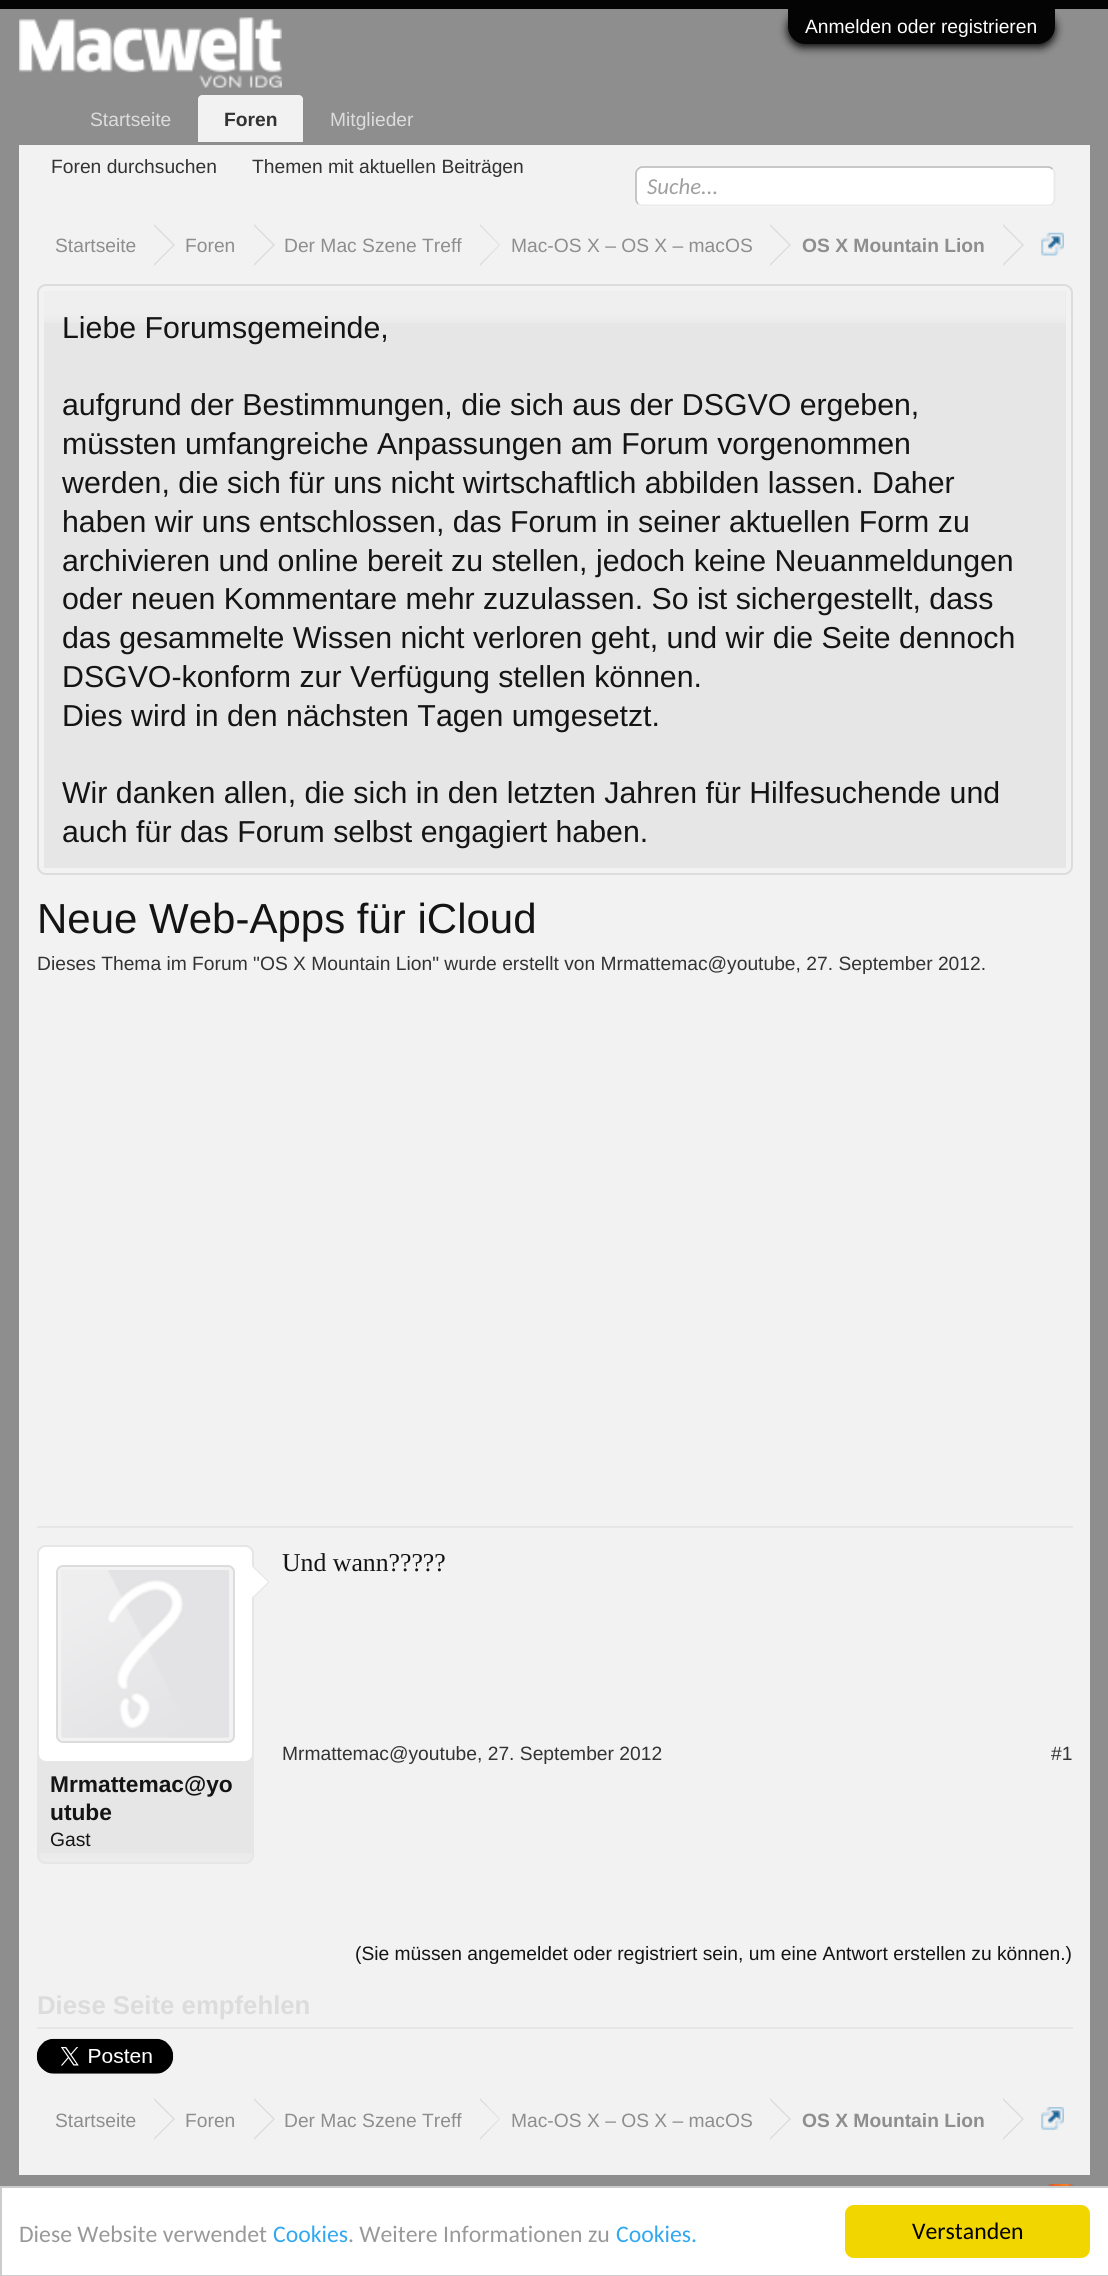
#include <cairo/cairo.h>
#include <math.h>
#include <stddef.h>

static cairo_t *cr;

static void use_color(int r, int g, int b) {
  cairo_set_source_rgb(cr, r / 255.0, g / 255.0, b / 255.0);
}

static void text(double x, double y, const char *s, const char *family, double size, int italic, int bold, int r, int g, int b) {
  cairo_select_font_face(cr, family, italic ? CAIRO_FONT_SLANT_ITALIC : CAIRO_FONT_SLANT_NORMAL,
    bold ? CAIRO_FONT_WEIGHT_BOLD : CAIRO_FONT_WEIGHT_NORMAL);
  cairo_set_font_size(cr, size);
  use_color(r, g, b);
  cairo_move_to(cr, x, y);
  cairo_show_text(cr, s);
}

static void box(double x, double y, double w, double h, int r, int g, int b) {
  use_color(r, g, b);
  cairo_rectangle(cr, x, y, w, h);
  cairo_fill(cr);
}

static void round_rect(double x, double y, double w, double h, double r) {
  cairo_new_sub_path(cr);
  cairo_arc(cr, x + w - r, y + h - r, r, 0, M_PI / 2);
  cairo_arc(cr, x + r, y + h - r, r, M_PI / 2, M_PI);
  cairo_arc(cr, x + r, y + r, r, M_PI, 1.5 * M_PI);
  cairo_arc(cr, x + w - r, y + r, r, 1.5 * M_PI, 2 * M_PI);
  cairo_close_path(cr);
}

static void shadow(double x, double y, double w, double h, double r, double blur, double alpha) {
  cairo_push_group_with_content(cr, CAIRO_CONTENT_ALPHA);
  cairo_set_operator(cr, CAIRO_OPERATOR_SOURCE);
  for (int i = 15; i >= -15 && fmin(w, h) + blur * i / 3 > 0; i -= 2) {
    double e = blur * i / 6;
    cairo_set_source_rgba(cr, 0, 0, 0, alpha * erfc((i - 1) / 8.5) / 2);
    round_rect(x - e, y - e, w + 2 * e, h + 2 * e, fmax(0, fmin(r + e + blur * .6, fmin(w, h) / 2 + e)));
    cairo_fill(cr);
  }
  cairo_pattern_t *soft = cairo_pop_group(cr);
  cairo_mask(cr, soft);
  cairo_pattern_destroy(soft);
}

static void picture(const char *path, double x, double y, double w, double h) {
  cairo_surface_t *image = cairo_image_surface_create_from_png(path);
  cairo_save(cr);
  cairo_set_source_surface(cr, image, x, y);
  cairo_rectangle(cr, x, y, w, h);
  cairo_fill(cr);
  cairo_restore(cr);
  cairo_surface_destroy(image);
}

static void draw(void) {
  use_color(142, 142, 142);
  cairo_paint(cr);
  box(0, 0, 1108, 9, 4, 4, 4);
  use_color(4, 4, 4);
  shadow(788, 12, 267, 35, 17.5, 4.5, 1);
  use_color(4, 4, 4);
  cairo_new_path(cr);
  cairo_move_to(cr, 788, 9);
  cairo_line_to(cr, 1055, 9);
  cairo_line_to(cr, 1055, 26.5);
  cairo_curve_to(cr, 1055, 36, 1047, 44, 1037.5, 44);
  cairo_line_to(cr, 805.5, 44);
  cairo_curve_to(cr, 796, 44, 788, 36, 788, 26.5);
  cairo_close_path(cr);
  cairo_fill(cr);
  picture("img_01.png", 19, 17, 263, 71);
  use_color(242, 242, 242);
  cairo_new_path(cr);
  cairo_move_to(cr, 202, 95);
  cairo_line_to(cr, 299, 95);
  cairo_curve_to(cr, 301, 95, 303, 97, 303, 99);
  cairo_line_to(cr, 303, 142);
  cairo_line_to(cr, 198, 142);
  cairo_line_to(cr, 198, 99);
  cairo_curve_to(cr, 198, 97, 200, 95, 202, 95);
  cairo_close_path(cr);
  cairo_fill(cr);
  box(19, 145, 1071, 2030, 242, 242, 242);
  use_color(255, 255, 255);
  round_rect(635, 166, 420, 41, 7);
  cairo_fill(cr);
  cairo_new_path(cr);
  cairo_move_to(cr, 1052.5, 169);
  cairo_curve_to(cr, 1053.5, 170, 1054.5, 171.5, 1054.5, 173);
  cairo_line_to(cr, 1054.5, 199.5);
  cairo_curve_to(cr, 1054.5, 201, 1053.5, 202.5, 1052.5, 204);
  cairo_curve_to(cr, 1051.5, 205, 1050, 205.5, 1048, 205.5);
  cairo_line_to(cr, 642, 205.5);
  cairo_curve_to(cr, 640.5, 205.5, 639, 205, 638, 204);
  use_color(233, 233, 233);
  cairo_set_line_width(cr, 1.8);
  cairo_stroke(cr);
  cairo_new_path(cr);
  cairo_move_to(cr, 638, 204);
  cairo_curve_to(cr, 637, 202.5, 636, 201, 636, 199.5);
  cairo_line_to(cr, 636, 173);
  cairo_curve_to(cr, 636, 171.5, 637, 170, 638, 169);
  cairo_curve_to(cr, 639, 168, 640.5, 167, 642, 167);
  cairo_line_to(cr, 1048, 167);
  cairo_curve_to(cr, 1050, 167, 1051.5, 168, 1052.5, 169);
  use_color(192, 192, 192);
  cairo_stroke(cr);
  use_color(220, 220, 220);
  cairo_new_path(cr);
  cairo_move_to(cr, 154, 266);
  cairo_line_to(cr, 154, 224);
  cairo_line_to(cr, 175, 245);
  cairo_close_path(cr);
  cairo_fill(cr);
  use_color(242, 242, 242);
  cairo_new_path(cr);
  cairo_move_to(cr, 152, 266);
  cairo_line_to(cr, 152, 224);
  cairo_line_to(cr, 173, 245);
  cairo_close_path(cr);
  cairo_fill(cr);
  use_color(220, 220, 220);
  cairo_new_path(cr);
  cairo_move_to(cr, 254, 266);
  cairo_line_to(cr, 254, 224);
  cairo_line_to(cr, 275, 245);
  cairo_close_path(cr);
  cairo_fill(cr);
  use_color(242, 242, 242);
  cairo_new_path(cr);
  cairo_move_to(cr, 252, 266);
  cairo_line_to(cr, 252, 224);
  cairo_line_to(cr, 273, 245);
  cairo_close_path(cr);
  cairo_fill(cr);
  use_color(220, 220, 220);
  cairo_new_path(cr);
  cairo_move_to(cr, 480, 266);
  cairo_line_to(cr, 480, 224);
  cairo_line_to(cr, 500, 245);
  cairo_close_path(cr);
  cairo_fill(cr);
  use_color(242, 242, 242);
  cairo_new_path(cr);
  cairo_move_to(cr, 478, 266);
  cairo_line_to(cr, 478, 224);
  cairo_line_to(cr, 499, 245);
  cairo_close_path(cr);
  cairo_fill(cr);
  use_color(220, 220, 220);
  cairo_new_path(cr);
  cairo_move_to(cr, 770, 266);
  cairo_line_to(cr, 770, 224);
  cairo_line_to(cr, 791, 245);
  cairo_close_path(cr);
  cairo_fill(cr);
  use_color(242, 242, 242);
  cairo_new_path(cr);
  cairo_move_to(cr, 768, 266);
  cairo_line_to(cr, 768, 224);
  cairo_line_to(cr, 789, 245);
  cairo_close_path(cr);
  cairo_fill(cr);
  use_color(220, 220, 220);
  cairo_new_path(cr);
  cairo_move_to(cr, 1003, 266);
  cairo_line_to(cr, 1003, 224);
  cairo_line_to(cr, 1024, 245);
  cairo_close_path(cr);
  cairo_fill(cr);
  use_color(242, 242, 242);
  cairo_new_path(cr);
  cairo_move_to(cr, 1001, 266);
  cairo_line_to(cr, 1001, 224);
  cairo_line_to(cr, 1022, 245);
  cairo_close_path(cr);
  cairo_fill(cr);
  picture("img_02.png", 1041, 232, 23, 24);
  round_rect(38, 285, 1034, 589, 8);
  use_color(220, 220, 220);
  cairo_set_line_width(cr, 2);
  cairo_stroke(cr);
  box(44, 291, 1022, 577, 230, 230, 230);
  picture("img_03.png", 44, 291, 1022, 32);
  box(37, 1526, 1036, 2, 230, 230, 230);
  round_rect(37, 1545, 217, 319, 9);
  cairo_fill(cr);
  picture("img_04.png", 37, 1853, 216, 9);
  round_rect(38, 1546, 215, 317, 8);
  cairo_stroke(cr);
  use_color(255, 255, 255);
  round_rect(39, 1547, 213, 214, 7);
  cairo_fill(cr);
  use_color(242, 242, 242);
  round_rect(57, 1566, 177, 176, 6);
  cairo_fill_preserve(cr);
  use_color(220, 220, 220);
  cairo_stroke(cr);
  picture("img_05.png", 61, 1570, 168, 168);
  use_color(230, 230, 230);
  cairo_new_path(cr);
  cairo_move_to(cr, 252, 1599.5);
  cairo_line_to(cr, 252, 1564.5);
  cairo_line_to(cr, 269.5, 1582);
  cairo_close_path(cr);
  cairo_fill(cr);
  use_color(255, 255, 255);
  cairo_new_path(cr);
  cairo_move_to(cr, 250, 1599.5);
  cairo_line_to(cr, 250, 1564.5);
  cairo_line_to(cr, 268, 1582);
  cairo_close_path(cr);
  cairo_fill(cr);
  box(37, 2027, 1036, 2, 230, 230, 230);
  picture("img_06.png", 36, 2038, 138, 36);
  use_color(220, 220, 220);
  cairo_new_path(cr);
  cairo_move_to(cr, 154, 2140);
  cairo_line_to(cr, 154, 2098);
  cairo_line_to(cr, 175, 2119);
  cairo_close_path(cr);
  cairo_fill(cr);
  use_color(242, 242, 242);
  cairo_new_path(cr);
  cairo_move_to(cr, 152, 2140);
  cairo_line_to(cr, 152, 2098);
  cairo_line_to(cr, 173, 2119);
  cairo_close_path(cr);
  cairo_fill(cr);
  use_color(220, 220, 220);
  cairo_new_path(cr);
  cairo_move_to(cr, 254, 2140);
  cairo_line_to(cr, 254, 2098);
  cairo_line_to(cr, 275, 2119);
  cairo_close_path(cr);
  cairo_fill(cr);
  use_color(242, 242, 242);
  cairo_new_path(cr);
  cairo_move_to(cr, 252, 2140);
  cairo_line_to(cr, 252, 2098);
  cairo_line_to(cr, 273, 2119);
  cairo_close_path(cr);
  cairo_fill(cr);
  use_color(220, 220, 220);
  cairo_new_path(cr);
  cairo_move_to(cr, 480, 2140);
  cairo_line_to(cr, 480, 2098);
  cairo_line_to(cr, 500, 2119);
  cairo_close_path(cr);
  cairo_fill(cr);
  use_color(242, 242, 242);
  cairo_new_path(cr);
  cairo_move_to(cr, 478, 2140);
  cairo_line_to(cr, 478, 2098);
  cairo_line_to(cr, 499, 2119);
  cairo_close_path(cr);
  cairo_fill(cr);
  use_color(220, 220, 220);
  cairo_new_path(cr);
  cairo_move_to(cr, 770, 2140);
  cairo_line_to(cr, 770, 2098);
  cairo_line_to(cr, 791, 2119);
  cairo_close_path(cr);
  cairo_fill(cr);
  use_color(242, 242, 242);
  cairo_new_path(cr);
  cairo_move_to(cr, 768, 2140);
  cairo_line_to(cr, 768, 2098);
  cairo_line_to(cr, 789, 2119);
  cairo_close_path(cr);
  cairo_fill(cr);
  use_color(220, 220, 220);
  cairo_new_path(cr);
  cairo_move_to(cr, 1003, 2140);
  cairo_line_to(cr, 1003, 2098);
  cairo_line_to(cr, 1024, 2119);
  cairo_close_path(cr);
  cairo_fill(cr);
  use_color(242, 242, 242);
  cairo_new_path(cr);
  cairo_move_to(cr, 1001, 2140);
  cairo_line_to(cr, 1001, 2098);
  cairo_line_to(cr, 1022, 2119);
  cairo_close_path(cr);
  cairo_fill(cr);
  picture("img_07.png", 1041, 2107, 23, 23);
  picture("img_08.png", 1048, 2184, 25, 2);
  use_color(255, 255, 255);
  cairo_rectangle(cr, 1, 2187, 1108, 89);
  cairo_fill_preserve(cr);
  use_color(204, 204, 204);
  cairo_stroke(cr);
  use_color(241, 214, 0);
  round_rect(845, 2205, 245, 53, 9);
  cairo_fill(cr);
  text(805, 33, "Anmelden oder registrieren", "Liberation Sans", 19.25, 0, 0, 255, 255, 255);
  text(224, 126, "Foren", "Liberation Sans", 19.25, 0, 1, 51, 51, 51);
  text(51, 173, "Foren durchsuchen", "Liberation Sans", 19.25, 0, 0, 51, 51, 51);
  text(252, 173, "Themen mit aktuellen Beiträgen", "Liberation Sans", 19.25, 0, 0, 51, 51, 51);
  text(90, 126, "Startseite", "Liberation Sans", 19.25, 0, 0, 220, 220, 220);
  text(330, 126, "Mitglieder", "Liberation Sans", 19.25, 0, 0, 220, 220, 220);
  text(647, 194, "Suche...", "Carlito", 22.75, 1, 0, 160, 160, 160);
  text(55, 252, "Startseite", "Liberation Sans", 19.25, 0, 0, 142, 142, 142);
  text(185, 252, "Foren", "Liberation Sans", 19.25, 0, 0, 142, 142, 142);
  text(284, 252, "Der Mac Szene Treff", "Liberation Sans", 19.25, 0, 0, 142, 142, 142);
  text(511, 252, "Mac-OS X – OS X – macOS", "Liberation Sans", 19.25, 0, 0, 142, 142, 142);
  text(802, 252, "OS X Mountain Lion", "Liberation Sans", 19.25, 0, 1, 142, 142, 142);
  text(62, 338, "Liebe Forumsgemeinde,", "Liberation Sans", 30.3, 0, 0, 20, 20, 20);
  text(62, 415, "aufgrund der Bestimmungen, die sich aus der DSGVO ergeben,", "Liberation Sans", 30.3, 0, 0, 20, 20, 20);
  text(62, 454, "müssten umfangreiche Anpassungen am Forum vorgenommen", "Liberation Sans", 30.3, 0, 0, 20, 20, 20);
  text(62, 493, "werden, die sich für uns nicht wirtschaftlich abbilden lassen. Daher", "Liberation Sans", 30.3, 0, 0, 20, 20, 20);
  text(62, 532, "haben wir uns entschlossen, das Forum in seiner aktuellen Form zu", "Liberation Sans", 30.3, 0, 0, 20, 20, 20);
  text(62, 571, "archivieren und online bereit zu stellen, jedoch keine Neuanmeldungen", "Liberation Sans", 30.3, 0, 0, 20, 20, 20);
  text(62, 609, "oder neuen Kommentare mehr zuzulassen. So ist sichergestellt, dass", "Liberation Sans", 30.3, 0, 0, 20, 20, 20);
  text(62, 648, "das gesammelte Wissen nicht verloren geht, und wir die Seite dennoch", "Liberation Sans", 30.3, 0, 0, 20, 20, 20);
  text(62, 687, "DSGVO-konform zur Verfügung stellen können.", "Liberation Sans", 30.3, 0, 0, 20, 20, 20);
  text(62, 726, "Dies wird in den nächsten Tagen umgesetzt.", "Liberation Sans", 30.3, 0, 0, 20, 20, 20);
  text(62, 803, "Wir danken allen, die sich in den letzten Jahren für Hilfesuchende und", "Liberation Sans", 30.3, 0, 0, 20, 20, 20);
  text(62, 842, "auch für das Forum selbst engagiert haben.", "Liberation Sans", 30.3, 0, 0, 20, 20, 20);
  text(37, 933, "Neue Web-Apps für iCloud", "Liberation Sans", 42, 0, 0, 20, 20, 20);
  text(37, 970, "Dieses Thema im Forum \"OS X Mountain Lion\" wurde erstellt von Mrmattemac@youtube, 27. September 2012.", "Liberation Sans", 19.25, 0, 0, 51, 51, 51);
  text(282, 1571, "Und wann?\077?\077?", "Liberation Serif", 25.75, 0, 0, 20, 20, 20);
  text(282, 1760, "Mrmattemac@youtube, 27. September 2012", "Liberation Sans", 19.25, 0, 0, 51, 51, 51);
  text(1051, 1760, "#1", "Liberation Sans", 19.25, 0, 0, 51, 51, 51);
  text(50, 1792, "Mrmattemac@yo", "Liberation Sans", 22.75, 0, 1, 20, 20, 20);
  text(50, 1820, "utube", "Liberation Sans", 22.75, 0, 1, 20, 20, 20);
  text(50, 1846, "Gast", "Liberation Sans", 19.25, 0, 0, 20, 20, 20);
  text(355, 1960, "(Sie müssen angemeldet oder registriert sein, um eine Antwort erstellen zu können.)", "Liberation Sans", 19.25, 0, 0, 20, 20, 20);
  text(37, 2014, "Diese Seite empfehlen", "Liberation Sans", 25.75, 0, 1, 220, 220, 220);
  text(55, 2127, "Startseite", "Liberation Sans", 19.25, 0, 0, 142, 142, 142);
  text(185, 2127, "Foren", "Liberation Sans", 19.25, 0, 0, 142, 142, 142);
  text(284, 2127, "Der Mac Szene Treff", "Liberation Sans", 19.25, 0, 0, 142, 142, 142);
  text(511, 2127, "Mac-OS X – OS X – macOS", "Liberation Sans", 19.25, 0, 0, 142, 142, 142);
  text(802, 2127, "OS X Mountain Lion", "Liberation Sans", 19.25, 0, 1, 142, 142, 142);
  text(19, 2242, "Diese Website verwendet", "Carlito", 23.75, 0, 0, 153, 153, 153);
  text(273, 2242, "Cookies", "Carlito", 23.75, 0, 0, 49, 168, 240);
  text(348, 2242, ". Weitere Informationen zu", "Carlito", 23.75, 0, 0, 153, 153, 153);
  text(616, 2242, "Cookies.", "Carlito", 23.75, 0, 0, 49, 168, 240);
  text(912, 2239, "Verstanden", "Carlito", 23.75, 0, 0, 0, 0, 0);
}

int main(void) {
  cairo_surface_t *surface = cairo_image_surface_create(CAIRO_FORMAT_RGB24, 1108, 2276);
  cr = cairo_create(surface);
  cairo_font_options_t *options = cairo_font_options_create();
  cairo_font_options_set_hint_metrics(options, CAIRO_HINT_METRICS_OFF);
  cairo_font_options_set_hint_style(options, CAIRO_HINT_STYLE_NONE);
  cairo_set_font_options(cr, options);
  cairo_set_miter_limit(cr, 4);
  draw();
  cairo_surface_write_to_png(surface, "out.png");
  cairo_font_options_destroy(options);
  cairo_destroy(cr);
  cairo_surface_destroy(surface);
  return 0;
}
